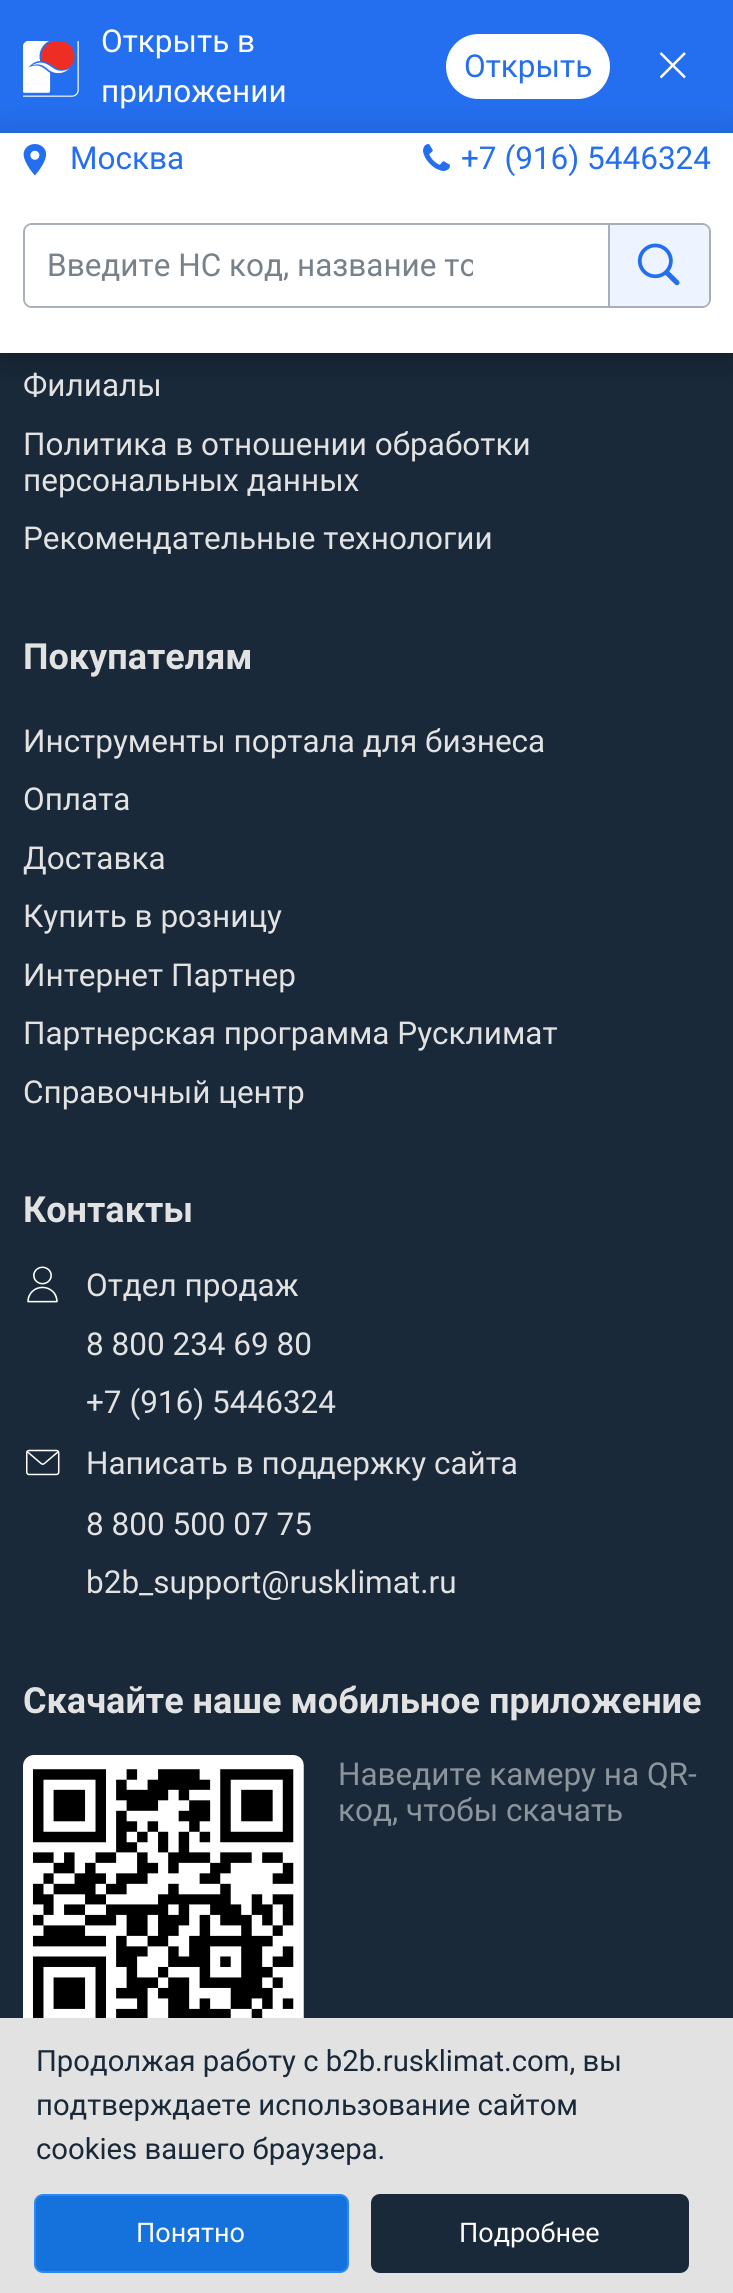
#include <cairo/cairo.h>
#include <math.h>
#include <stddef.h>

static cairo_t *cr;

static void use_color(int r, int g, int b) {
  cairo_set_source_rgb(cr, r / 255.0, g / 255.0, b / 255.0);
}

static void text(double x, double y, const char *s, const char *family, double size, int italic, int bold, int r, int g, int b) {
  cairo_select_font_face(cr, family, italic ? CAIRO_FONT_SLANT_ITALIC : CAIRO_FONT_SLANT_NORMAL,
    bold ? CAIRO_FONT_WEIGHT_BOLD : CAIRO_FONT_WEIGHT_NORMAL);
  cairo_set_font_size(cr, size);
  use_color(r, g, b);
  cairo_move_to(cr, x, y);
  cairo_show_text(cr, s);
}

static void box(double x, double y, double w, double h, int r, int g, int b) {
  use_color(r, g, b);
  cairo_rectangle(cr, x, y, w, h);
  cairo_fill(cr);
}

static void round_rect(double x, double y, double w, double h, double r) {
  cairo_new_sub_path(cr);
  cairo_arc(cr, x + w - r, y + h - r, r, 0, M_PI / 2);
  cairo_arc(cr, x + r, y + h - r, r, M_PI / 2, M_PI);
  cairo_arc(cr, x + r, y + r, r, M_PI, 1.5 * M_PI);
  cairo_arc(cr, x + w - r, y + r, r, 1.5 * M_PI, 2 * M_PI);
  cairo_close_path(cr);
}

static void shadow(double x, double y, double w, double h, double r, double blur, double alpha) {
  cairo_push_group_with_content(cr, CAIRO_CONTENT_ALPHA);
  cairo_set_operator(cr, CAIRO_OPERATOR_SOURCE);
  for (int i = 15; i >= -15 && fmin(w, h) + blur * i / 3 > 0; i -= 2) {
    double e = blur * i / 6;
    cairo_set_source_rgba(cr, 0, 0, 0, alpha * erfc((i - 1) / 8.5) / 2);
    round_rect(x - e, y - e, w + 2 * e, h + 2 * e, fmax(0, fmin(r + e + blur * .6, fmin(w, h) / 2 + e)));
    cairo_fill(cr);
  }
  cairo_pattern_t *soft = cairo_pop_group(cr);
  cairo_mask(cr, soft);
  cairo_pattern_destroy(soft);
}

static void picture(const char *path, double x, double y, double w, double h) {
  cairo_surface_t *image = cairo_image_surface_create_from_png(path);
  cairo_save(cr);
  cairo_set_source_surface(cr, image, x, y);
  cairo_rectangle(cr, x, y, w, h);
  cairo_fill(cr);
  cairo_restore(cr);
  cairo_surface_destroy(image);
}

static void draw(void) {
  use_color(25, 41, 57);
  cairo_paint(cr);
  box(0, 0, 733, 133, 36, 111, 239);
  use_color(0, 0, 0);
  shadow(0, 140, 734, 220, 0, 17, 0.25);
  picture("img_01.png", 23, 41, 56, 56);
  use_color(255, 255, 255);
  round_rect(446, 34, 164, 65, 32.5);
  cairo_fill(cr);
  cairo_new_path(cr);
  cairo_move_to(cr, 660.5, 53);
  cairo_line_to(cr, 685, 77.5);
  cairo_move_to(cr, 685, 53);
  cairo_line_to(cr, 660.5, 77.5);
  cairo_set_line_width(cr, 2.5);
  cairo_stroke(cr);
  box(0, 133, 733, 220, 255, 255, 255);
  picture("img_02.png", 23, 144, 24, 32);
  picture("img_03.png", 423, 144, 27, 27);
  round_rect(24, 224, 686, 83, 8);
  use_color(169, 175, 184);
  cairo_set_line_width(cr, 2);
  cairo_stroke(cr);
  use_color(255, 255, 255);
  cairo_new_path(cr);
  cairo_move_to(cr, 32, 225);
  cairo_line_to(cr, 490, 225);
  cairo_curve_to(cr, 493, 225, 495, 227, 495, 230);
  cairo_line_to(cr, 495, 301);
  cairo_curve_to(cr, 495, 304, 493, 306, 490, 306);
  cairo_line_to(cr, 32, 306);
  cairo_curve_to(cr, 28, 306, 25, 303, 25, 299);
  cairo_line_to(cr, 25, 232);
  cairo_curve_to(cr, 25, 228, 28, 225, 32, 225);
  cairo_close_path(cr);
  cairo_fill(cr);
  use_color(237, 244, 255);
  cairo_new_path(cr);
  cairo_move_to(cr, 608, 225);
  cairo_line_to(cr, 702, 225);
  cairo_curve_to(cr, 706, 225, 709, 228, 709, 232);
  cairo_line_to(cr, 709, 299);
  cairo_curve_to(cr, 709, 303, 706, 306, 702, 306);
  cairo_line_to(cr, 608, 306);
  cairo_close_path(cr);
  cairo_fill(cr);
  box(608, 225, 2, 81, 169, 175, 184);
  picture("img_04.png", 637, 243, 43, 43);
  picture("img_05.png", 27, 1266, 31, 37);
  picture("img_06.png", 26, 1449, 34, 27);
  picture("img_07.png", 23, 1755, 281, 263);
  box(0, 2018, 733, 275, 226, 226, 226);
  use_color(21, 113, 220);
  round_rect(35, 2195, 313, 77, 8);
  cairo_fill_preserve(cr);
  use_color(40, 136, 247);
  cairo_stroke(cr);
  use_color(25, 41, 57);
  round_rect(372, 2195, 316, 77, 8);
  cairo_fill_preserve(cr);
  cairo_stroke(cr);
  text(101, 52, "Открыть в", "Roboto", 31.5, 0, 0, 255, 255, 255);
  text(101, 102, "приложении", "Roboto", 31.5, 0, 0, 255, 255, 255);
  text(464, 77, "Открыть", "Roboto", 31.5, 0, 0, 36, 111, 239);
  text(70, 169, "Москва", "Roboto", 31.5, 0, 0, 36, 111, 239);
  text(461, 169, "+7 (916) 5446324", "Roboto", 31.5, 0, 0, 36, 111, 239);
  cairo_save(cr);
  cairo_rectangle(cr, 47, 248, 426, 36);
  cairo_clip(cr);
  text(47, 276, "Введите НС код, название то", "Roboto", 31.5, 0, 0, 119, 129, 138);
  cairo_restore(cr);
  text(23, 396, "Филиалы", "Roboto", 31.5, 0, 0, 226, 226, 226);
  text(23, 455, "Политика в отношении обработки", "Roboto", 31.5, 0, 0, 226, 226, 226);
  text(23, 491, "персональных данных", "Roboto", 31.5, 0, 0, 226, 226, 226);
  text(23, 549, "Рекомендательные технологии", "Roboto", 31.5, 0, 0, 226, 226, 226);
  text(23, 669, "Покупателям", "Roboto", 36, 0, 1, 226, 226, 226);
  text(23, 752, "Инструменты портала для бизнеса", "Roboto", 31.5, 0, 0, 226, 226, 226);
  text(23, 810, "Оплата", "Roboto", 31.5, 0, 0, 226, 226, 226);
  text(23, 869, "Доставка", "Roboto", 31.5, 0, 0, 226, 226, 226);
  text(23, 927, "Купить в розницу", "Roboto", 31.5, 0, 0, 226, 226, 226);
  text(23, 986, "Интернет Партнер", "Roboto", 31.5, 0, 0, 226, 226, 226);
  text(23, 1044, "Партнерская программа Русклимат", "Roboto", 31.5, 0, 0, 226, 226, 226);
  text(23, 1103, "Справочный центр", "Roboto", 31.5, 0, 0, 226, 226, 226);
  text(23, 1222, "Контакты", "Roboto", 36, 0, 1, 226, 226, 226);
  text(86, 1296, "Отдел продаж", "Roboto", 31.5, 0, 0, 226, 226, 226);
  text(86, 1355, "8 800 234 69 80", "Roboto", 31.5, 0, 0, 226, 226, 226);
  text(86, 1413, "+7 (916) 5446324", "Roboto", 31.5, 0, 0, 226, 226, 226);
  text(86, 1474, "Написать в поддержку сайта", "Roboto", 31.5, 0, 0, 226, 226, 226);
  text(86, 1535, "8 800 500 07 75", "Roboto", 31.5, 0, 0, 226, 226, 226);
  text(86, 1593, "b2b_support@rusklimat.ru", "Roboto", 31.5, 0, 0, 226, 226, 226);
  text(23, 1713, "Скачайте наше мобильное приложение", "Roboto", 36, 0, 1, 226, 226, 226);
  text(338, 1785, "Наведите камеру на QR-", "Roboto", 31.5, 0, 0, 140, 148, 156);
  text(338, 1821, "код, чтобы скачать", "Roboto", 31.5, 0, 0, 140, 148, 156);
  text(36, 2071, "Продолжая работу с b2b.rusklimat.com, вы", "Roboto", 29.25, 0, 0, 25, 41, 57);
  text(36, 2115, "подтверждаете использование сайтом", "Roboto", 29.25, 0, 0, 25, 41, 57);
  text(36, 2159, "cookies вашего браузера.", "Roboto", 29.25, 0, 0, 25, 41, 57);
  text(136, 2242, "Понятно", "Roboto", 27, 0, 0, 255, 255, 255);
  text(459, 2242, "Подробнее", "Roboto", 27, 0, 0, 255, 255, 255);
}

int main(void) {
  cairo_surface_t *surface = cairo_image_surface_create(CAIRO_FORMAT_RGB24, 733, 2293);
  cr = cairo_create(surface);
  cairo_font_options_t *options = cairo_font_options_create();
  cairo_font_options_set_hint_metrics(options, CAIRO_HINT_METRICS_OFF);
  cairo_font_options_set_hint_style(options, CAIRO_HINT_STYLE_NONE);
  cairo_set_font_options(cr, options);
  cairo_set_miter_limit(cr, 4);
  draw();
  cairo_surface_write_to_png(surface, "out.png");
  cairo_font_options_destroy(options);
  cairo_destroy(cr);
  cairo_surface_destroy(surface);
  return 0;
}
